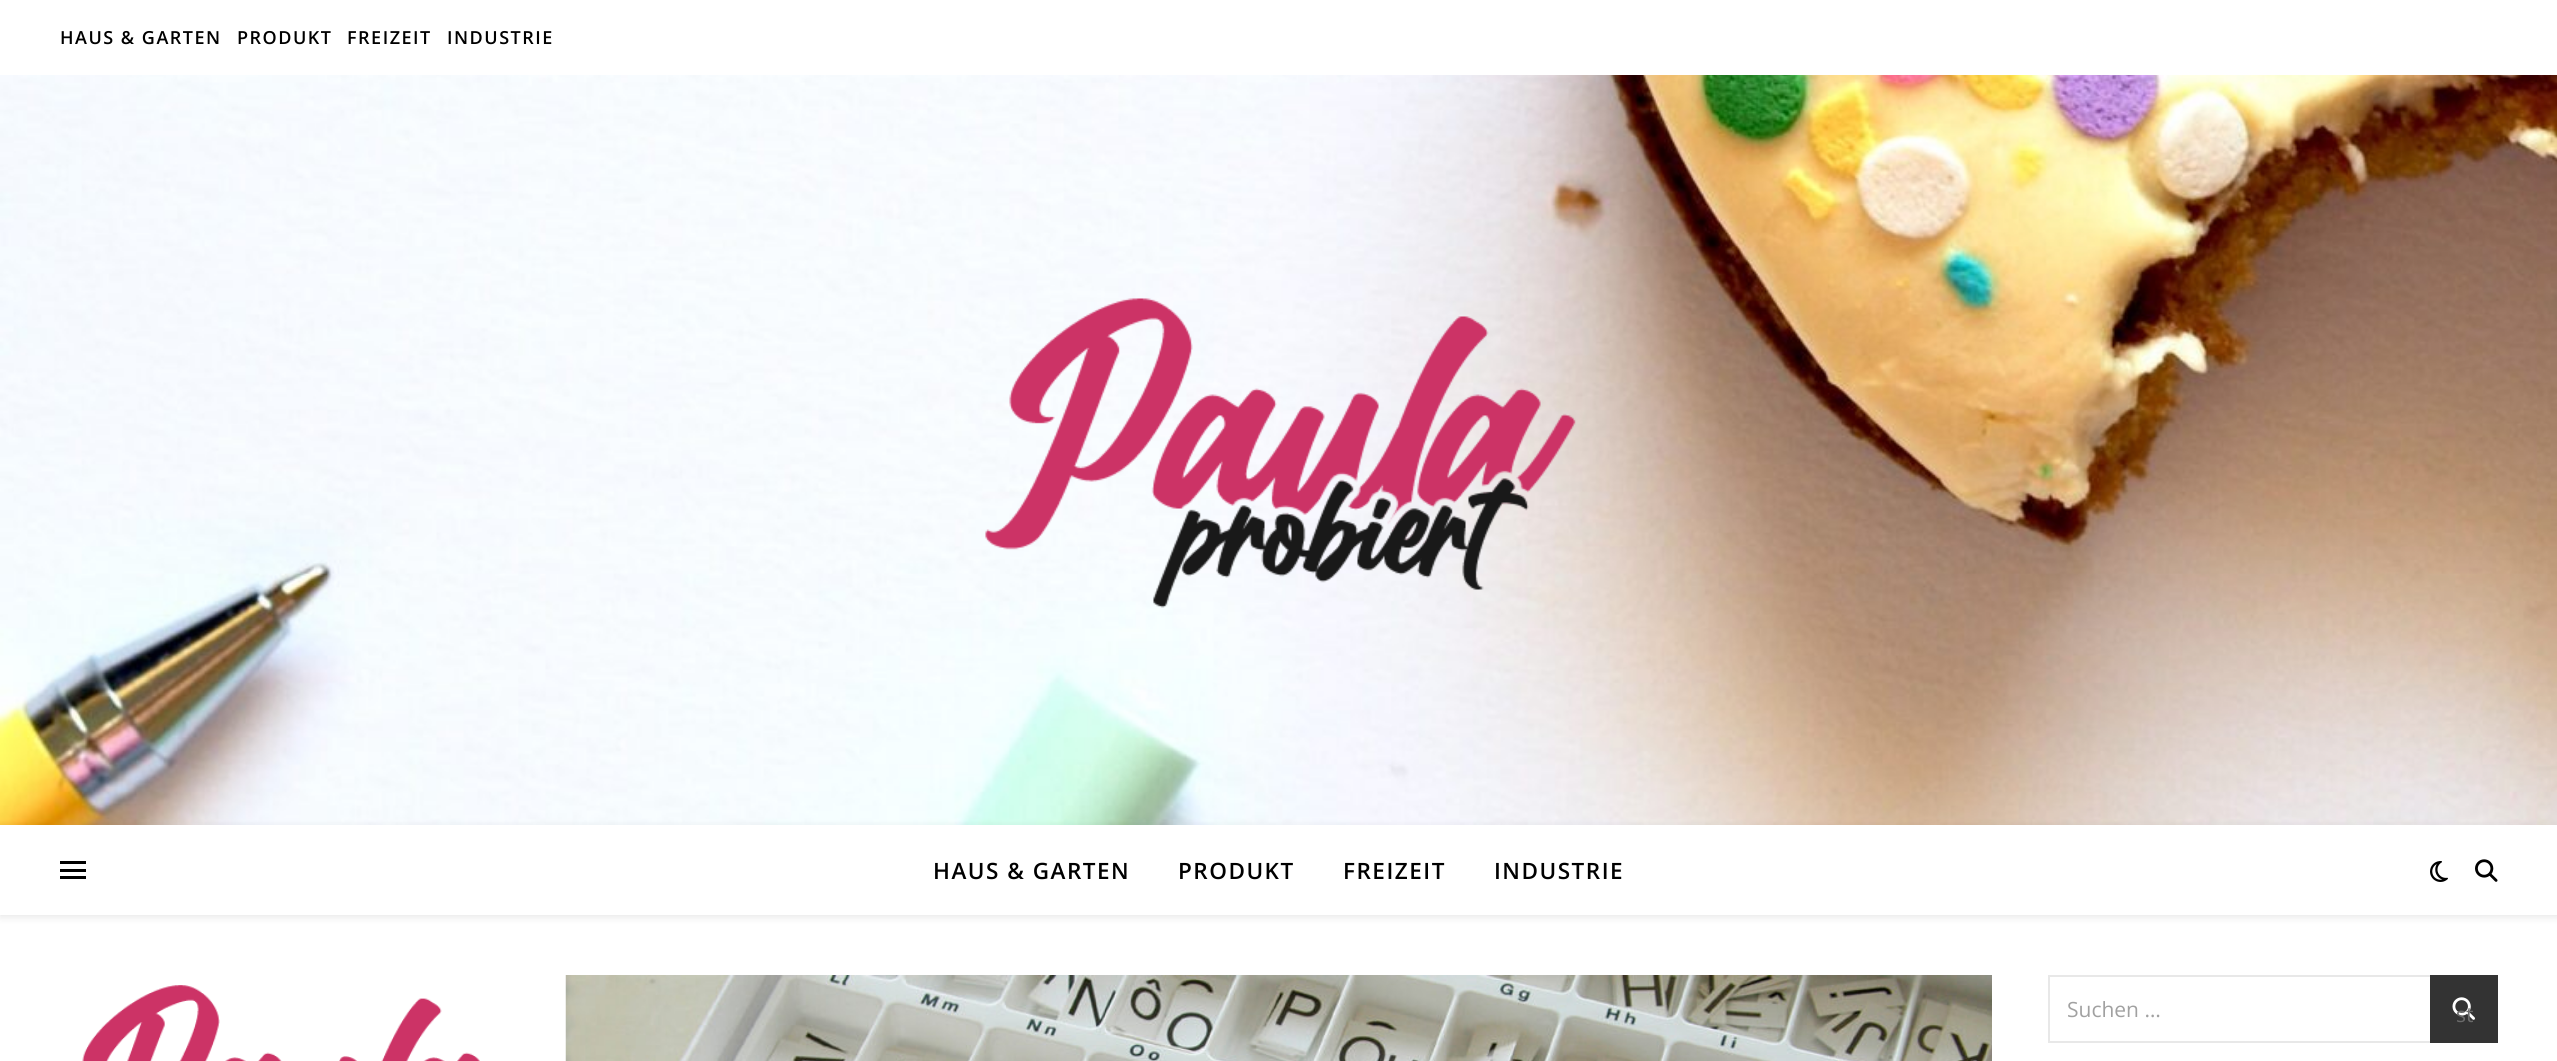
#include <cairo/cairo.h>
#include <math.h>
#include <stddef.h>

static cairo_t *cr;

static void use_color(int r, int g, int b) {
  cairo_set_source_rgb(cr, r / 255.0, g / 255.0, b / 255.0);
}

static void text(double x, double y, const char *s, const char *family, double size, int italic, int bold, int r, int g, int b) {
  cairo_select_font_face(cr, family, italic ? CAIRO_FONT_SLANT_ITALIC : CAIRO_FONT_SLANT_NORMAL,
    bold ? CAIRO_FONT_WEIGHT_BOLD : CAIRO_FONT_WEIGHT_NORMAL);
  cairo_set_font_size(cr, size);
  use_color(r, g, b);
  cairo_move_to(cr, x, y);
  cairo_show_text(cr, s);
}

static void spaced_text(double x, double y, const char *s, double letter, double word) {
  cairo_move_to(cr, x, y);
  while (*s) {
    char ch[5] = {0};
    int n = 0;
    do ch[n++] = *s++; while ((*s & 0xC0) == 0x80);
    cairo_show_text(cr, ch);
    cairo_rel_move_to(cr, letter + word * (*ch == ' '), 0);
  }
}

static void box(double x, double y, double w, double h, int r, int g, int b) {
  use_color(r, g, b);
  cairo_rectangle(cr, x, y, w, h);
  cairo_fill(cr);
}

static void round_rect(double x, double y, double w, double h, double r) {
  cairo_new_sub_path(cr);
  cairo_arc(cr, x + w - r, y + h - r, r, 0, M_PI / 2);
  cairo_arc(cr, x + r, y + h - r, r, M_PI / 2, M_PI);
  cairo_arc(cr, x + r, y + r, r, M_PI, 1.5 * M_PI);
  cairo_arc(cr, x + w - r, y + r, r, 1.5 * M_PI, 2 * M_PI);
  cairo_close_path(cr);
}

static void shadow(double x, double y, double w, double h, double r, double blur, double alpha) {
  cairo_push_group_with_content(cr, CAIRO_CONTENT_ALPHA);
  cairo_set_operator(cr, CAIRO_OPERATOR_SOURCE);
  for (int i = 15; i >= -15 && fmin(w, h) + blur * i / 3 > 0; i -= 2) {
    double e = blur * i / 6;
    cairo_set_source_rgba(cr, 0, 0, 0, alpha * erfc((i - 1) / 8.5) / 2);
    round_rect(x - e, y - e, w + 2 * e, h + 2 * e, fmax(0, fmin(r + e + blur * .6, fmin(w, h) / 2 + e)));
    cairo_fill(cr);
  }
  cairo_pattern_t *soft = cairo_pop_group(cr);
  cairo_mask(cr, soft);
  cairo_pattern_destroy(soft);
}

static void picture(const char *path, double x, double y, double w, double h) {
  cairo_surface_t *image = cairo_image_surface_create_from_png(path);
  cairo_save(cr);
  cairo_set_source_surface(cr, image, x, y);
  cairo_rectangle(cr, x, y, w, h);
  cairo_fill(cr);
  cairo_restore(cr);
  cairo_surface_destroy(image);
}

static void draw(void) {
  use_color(255, 255, 255);
  cairo_paint(cr);
  picture("img_01.png", 0, 75, 2557, 750);
  picture("img_02.png", 985, 298, 591, 310);
  cairo_save(cr);
  cairo_set_fill_rule(cr, CAIRO_FILL_RULE_EVEN_ODD);
  cairo_new_path(cr);
  cairo_move_to(cr, 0, 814);
  cairo_line_to(cr, 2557, 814);
  cairo_line_to(cr, 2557, 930);
  cairo_line_to(cr, 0, 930);
  cairo_close_path(cr);
  cairo_move_to(cr, 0, 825);
  cairo_line_to(cr, 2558, 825);
  cairo_line_to(cr, 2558, 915);
  cairo_line_to(cr, 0, 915);
  cairo_close_path(cr);
  cairo_clip(cr);
  use_color(0, 0, 0);
  shadow(0, 827, 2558, 90, 0, 4, 0.1);
  cairo_restore(cr);
  box(60, 861, 26, 3, 0, 0, 0);
  box(60, 869, 26, 3, 0, 0, 0);
  box(60, 876, 26, 3, 0, 0, 0);
  picture("img_03.png", 2430, 861, 18, 21);
  picture("img_04.png", 2475, 859, 23, 23);
  picture("img_05.png", 82, 985, 398, 76);
  picture("img_06.png", 565, 975, 1427, 86);
  cairo_rectangle(cr, 2049, 976, 448, 66);
  use_color(232, 232, 232);
  cairo_stroke(cr);
  box(2430, 975, 68, 68, 51, 51, 51);
  picture("img_07.png", 2452, 997, 23, 23);
  cairo_select_font_face(cr, "Open Sans SemiBold", CAIRO_FONT_SLANT_NORMAL, CAIRO_FONT_WEIGHT_NORMAL);
  cairo_set_font_size(cr, 18);
  use_color(0, 0, 0);
  spaced_text(60, 44, "HAUS & GARTEN", 1.5, 0);
  spaced_text(237, 44, "PRODUKT", 1.5, 0);
  spaced_text(347, 44, "FREIZEIT", 1.5, 0);
  spaced_text(447, 44, "INDUSTRIE", 1.5, 0);
  cairo_set_font_size(cr, 22.5);
  spaced_text(933, 879, "HAUS & GARTEN", 1.5, 0);
  spaced_text(1178, 879, "PRODUKT", 1.5, 0);
  spaced_text(1343, 879, "FREIZEIT", 1.5, 0);
  spaced_text(1494, 879, "INDUSTRIE", 1.5, 0);
  text(2067, 1017, "Suchen …", "Open Sans", 21, 0, 0, 161, 161, 161);
  text(2456, 1022, "st", "Open Sans", 21, 0, 0, 106, 106, 106);
}

int main(void) {
  cairo_surface_t *surface = cairo_image_surface_create(CAIRO_FORMAT_RGB24, 2557, 1061);
  cr = cairo_create(surface);
  cairo_font_options_t *options = cairo_font_options_create();
  cairo_font_options_set_hint_metrics(options, CAIRO_HINT_METRICS_OFF);
  cairo_font_options_set_hint_style(options, CAIRO_HINT_STYLE_NONE);
  cairo_set_font_options(cr, options);
  cairo_set_miter_limit(cr, 4);
  draw();
  cairo_surface_write_to_png(surface, "out.png");
  cairo_font_options_destroy(options);
  cairo_destroy(cr);
  cairo_surface_destroy(surface);
  return 0;
}
